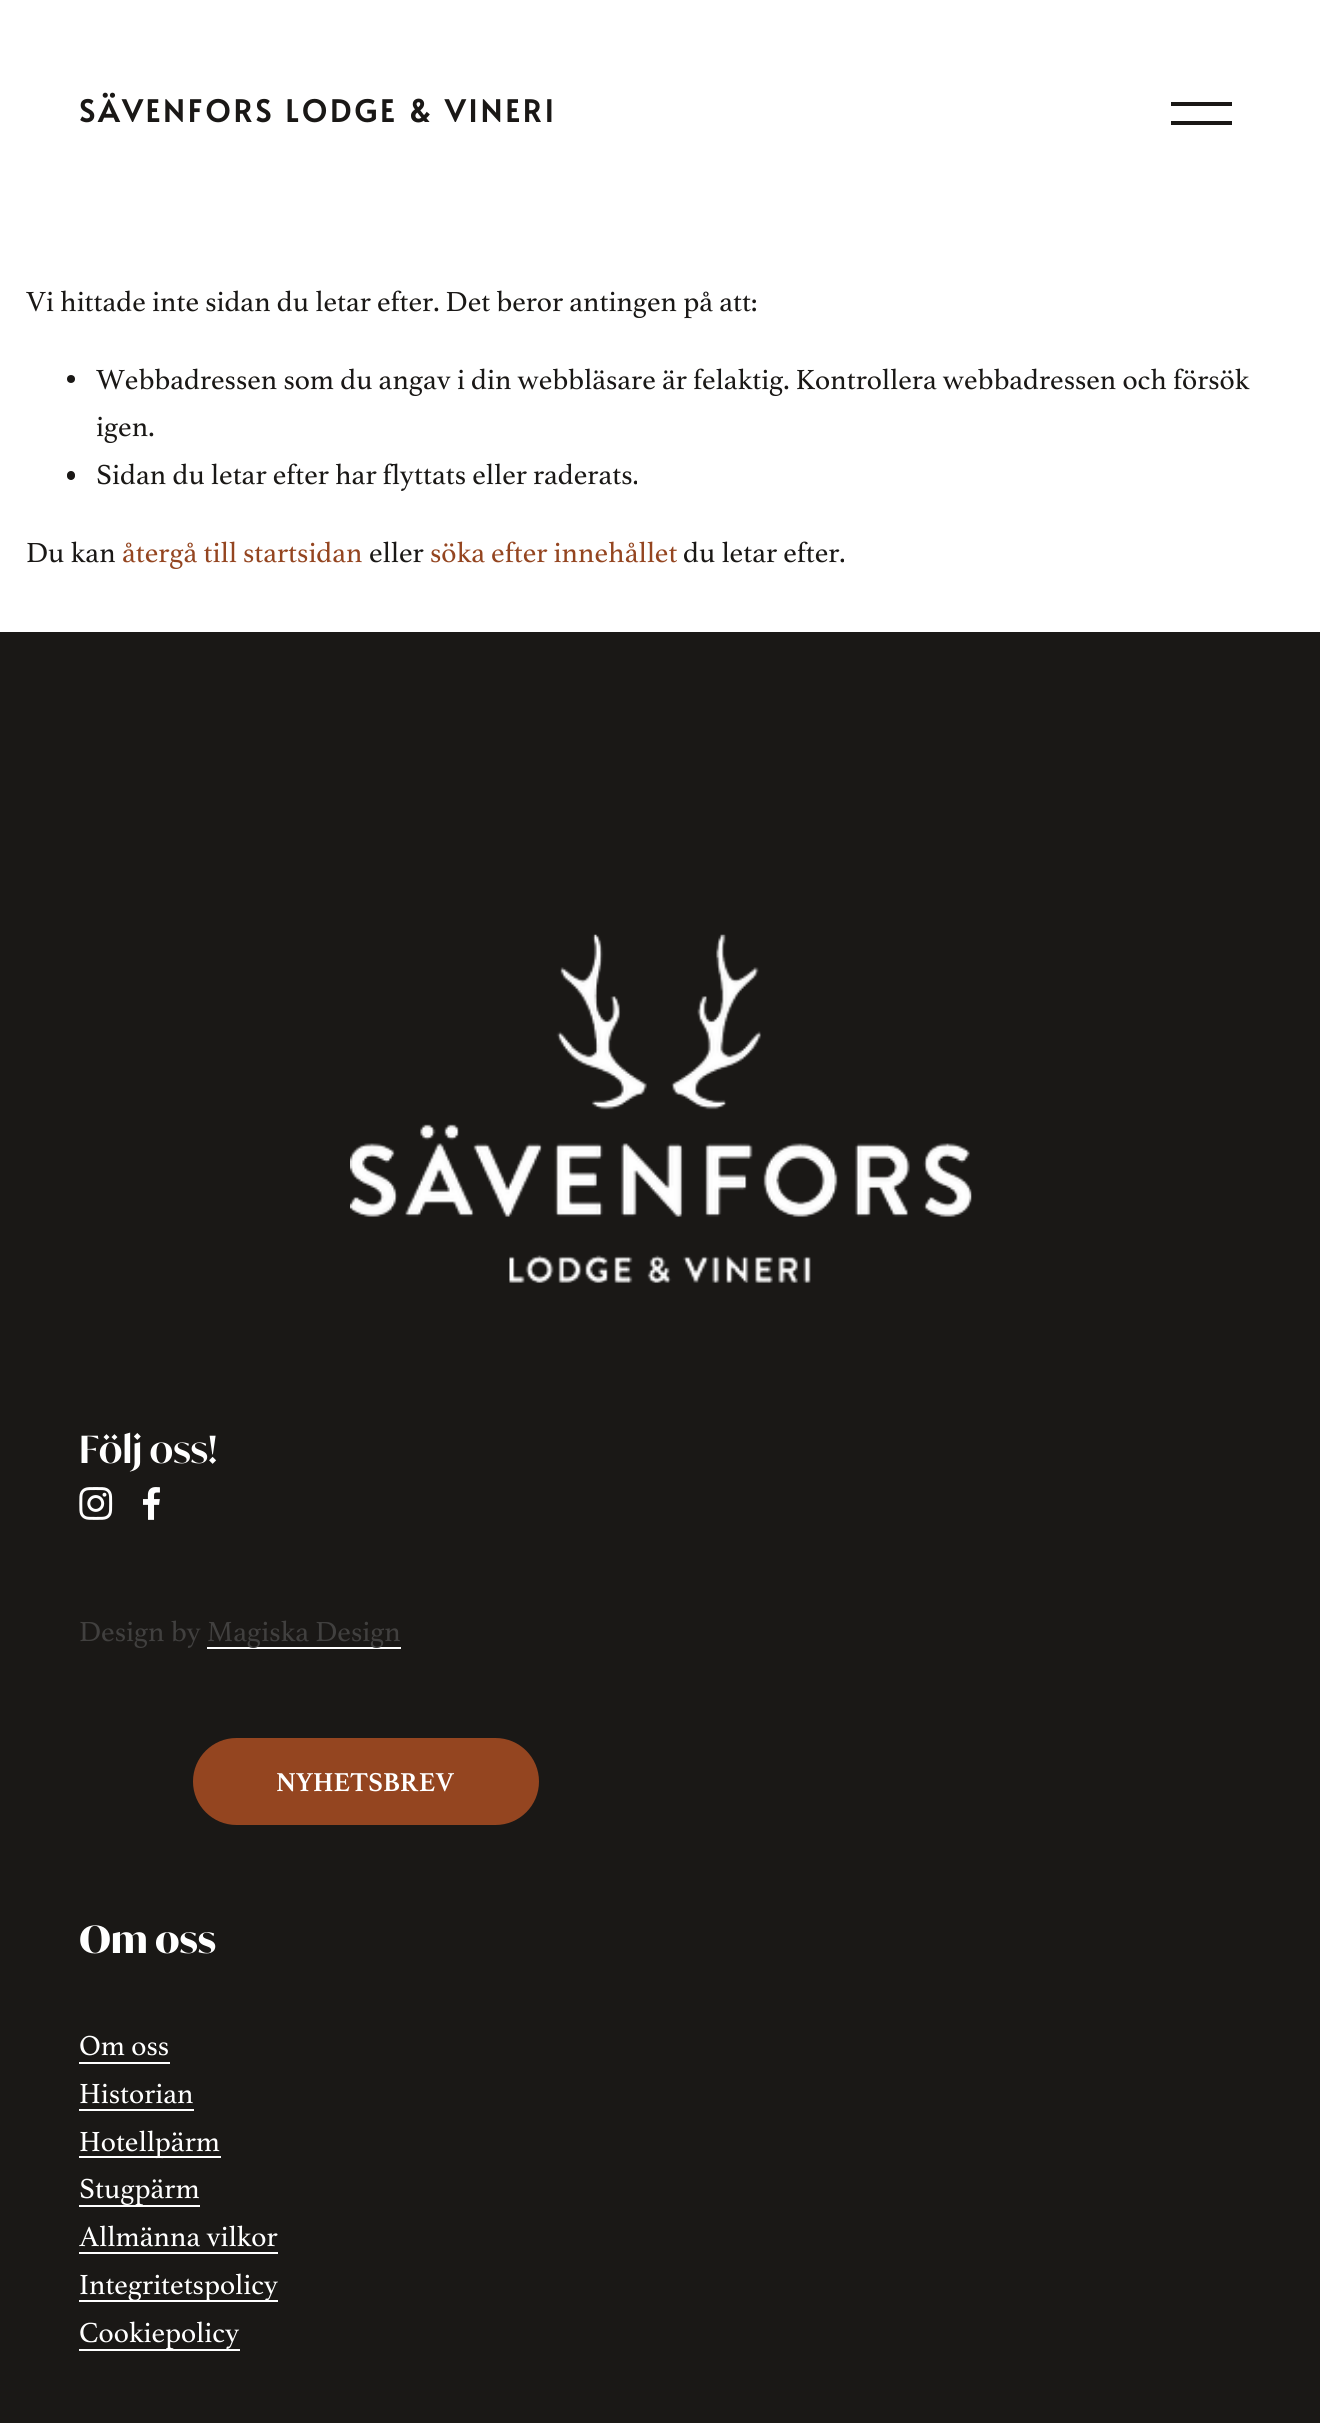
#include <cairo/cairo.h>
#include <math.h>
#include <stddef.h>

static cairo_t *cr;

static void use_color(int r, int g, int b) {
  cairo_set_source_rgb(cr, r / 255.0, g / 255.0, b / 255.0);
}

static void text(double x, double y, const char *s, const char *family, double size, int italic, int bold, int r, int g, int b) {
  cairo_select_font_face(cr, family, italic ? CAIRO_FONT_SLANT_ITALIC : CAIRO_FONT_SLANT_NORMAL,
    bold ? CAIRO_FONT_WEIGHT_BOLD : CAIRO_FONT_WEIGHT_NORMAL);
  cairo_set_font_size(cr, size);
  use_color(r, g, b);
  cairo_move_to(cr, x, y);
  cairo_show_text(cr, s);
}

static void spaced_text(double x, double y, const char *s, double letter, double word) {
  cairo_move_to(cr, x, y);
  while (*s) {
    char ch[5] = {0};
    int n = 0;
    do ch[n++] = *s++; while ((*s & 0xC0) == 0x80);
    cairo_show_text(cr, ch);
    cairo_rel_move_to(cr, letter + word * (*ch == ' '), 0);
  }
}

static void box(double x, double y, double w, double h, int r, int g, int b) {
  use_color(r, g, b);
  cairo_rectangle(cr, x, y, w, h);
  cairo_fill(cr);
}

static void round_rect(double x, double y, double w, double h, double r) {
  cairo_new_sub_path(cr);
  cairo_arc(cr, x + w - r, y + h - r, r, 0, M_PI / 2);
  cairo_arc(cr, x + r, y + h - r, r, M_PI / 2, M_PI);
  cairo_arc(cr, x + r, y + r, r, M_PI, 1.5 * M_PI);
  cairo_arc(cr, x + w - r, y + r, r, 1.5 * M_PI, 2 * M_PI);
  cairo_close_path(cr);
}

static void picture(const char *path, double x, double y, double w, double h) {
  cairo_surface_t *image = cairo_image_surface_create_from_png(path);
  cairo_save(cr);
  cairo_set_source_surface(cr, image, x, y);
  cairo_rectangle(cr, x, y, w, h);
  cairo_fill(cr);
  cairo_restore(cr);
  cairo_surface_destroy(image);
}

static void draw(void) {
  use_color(255, 255, 255);
  cairo_paint(cr);
  box(1171, 102, 61, 4, 26, 24, 22);
  box(1171, 121, 61, 4, 26, 24, 22);
  cairo_arc(cr, 71, 379, 4, 0, 2 * M_PI);
  cairo_fill(cr);
  round_rect(67, 471, 8, 9, 4);
  cairo_fill(cr);
  box(0, 632, 1320, 1791, 26, 24, 22);
  picture("img_01.png", 350, 934, 622, 349);
  picture("img_02.png", 79, 1487, 34, 33);
  picture("img_03.png", 143, 1487, 17, 33);
  box(207, 1647, 194, 2, 255, 255, 255);
  use_color(148, 69, 32);
  round_rect(193, 1738, 346, 87, 43.5);
  cairo_fill(cr);
  box(79, 2062, 91, 2, 255, 255, 255);
  box(79, 2109, 115, 2, 255, 255, 255);
  box(79, 2156, 142, 2, 255, 255, 255);
  box(79, 2205, 121, 2, 255, 255, 255);
  box(79, 2252, 199, 2, 255, 255, 255);
  box(79, 2300, 199, 2, 255, 255, 255);
  box(79, 2349, 161, 2, 255, 255, 255);
  cairo_select_font_face(cr, "Alata", CAIRO_FONT_SLANT_NORMAL, CAIRO_FONT_WEIGHT_BOLD);
  cairo_set_font_size(cr, 29.9);
  use_color(26, 24, 22);
  spaced_text(79, 122, "SÄVENFORS LODGE & VINERI", 3.5, 0);
  text(26, 311, "Vi hittade inte sidan du letar efter. Det beror antingen på att:", "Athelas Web", 29.9, 0, 0, 26, 24, 22);
  text(96, 389, "Webbadressen som du angav i din webbläsare är felaktig. Kontrollera webbadressen och försök", "Athelas Web", 29.9, 0, 0, 26, 24, 22);
  text(96, 436, "igen.", "Athelas Web", 29.9, 0, 0, 26, 24, 22);
  text(96, 484, "Sidan du letar efter har flyttats eller raderats.", "Athelas Web", 29.9, 0, 0, 26, 24, 22);
  text(26, 562, "Du kan", "Athelas Web", 29.9, 0, 0, 26, 24, 22);
  text(122, 562, "återgå till startsidan", "Athelas Web", 29.9, 0, 0, 148, 69, 32);
  text(369, 562, "eller", "Athelas Web", 29.9, 0, 0, 26, 24, 22);
  text(430, 562, "söka efter innehållet", "Athelas Web", 29.9, 0, 0, 148, 69, 32);
  text(683, 562, "du letar efter.", "Athelas Web", 29.9, 0, 0, 26, 24, 22);
  text(79, 1463, "Följ oss!", "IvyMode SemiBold", 37.5, 0, 0, 255, 255, 255);
  text(79, 1641, "Design by", "Athelas Web", 29.9, 0, 0, 65, 64, 63);
  text(207, 1641, "Magiska Design", "Athelas Web", 29.9, 0, 0, 65, 64, 63);
  text(276, 1791, "NYHETSBREV", "Athelas Web", 28, 0, 1, 255, 255, 255);
  text(79, 1953, "Om oss", "IvyMode", 37.5, 0, 1, 255, 255, 255);
  text(79, 2055, "Om oss", "Athelas Web", 29.9, 0, 0, 255, 255, 255);
  text(79, 2103, "Historian", "Athelas Web", 29.9, 0, 0, 255, 255, 255);
  text(79, 2151, "Hotellpärm", "Athelas Web", 29.9, 0, 0, 255, 255, 255);
  text(79, 2198, "Stugpärm", "Athelas Web", 29.9, 0, 0, 255, 255, 255);
  text(79, 2246, "Allmänna vilkor", "Athelas Web", 29.9, 0, 0, 255, 255, 255);
  text(79, 2294, "Integritetspolicy", "Athelas Web", 29.9, 0, 0, 255, 255, 255);
  text(79, 2342, "Cookiepolicy", "Athelas Web", 29.9, 0, 0, 255, 255, 255);
}

int main(void) {
  cairo_surface_t *surface = cairo_image_surface_create(CAIRO_FORMAT_RGB24, 1320, 2423);
  cr = cairo_create(surface);
  cairo_font_options_t *options = cairo_font_options_create();
  cairo_font_options_set_hint_metrics(options, CAIRO_HINT_METRICS_OFF);
  cairo_font_options_set_hint_style(options, CAIRO_HINT_STYLE_NONE);
  cairo_set_font_options(cr, options);
  cairo_set_miter_limit(cr, 4);
  draw();
  cairo_surface_write_to_png(surface, "out.png");
  cairo_font_options_destroy(options);
  cairo_destroy(cr);
  cairo_surface_destroy(surface);
  return 0;
}
